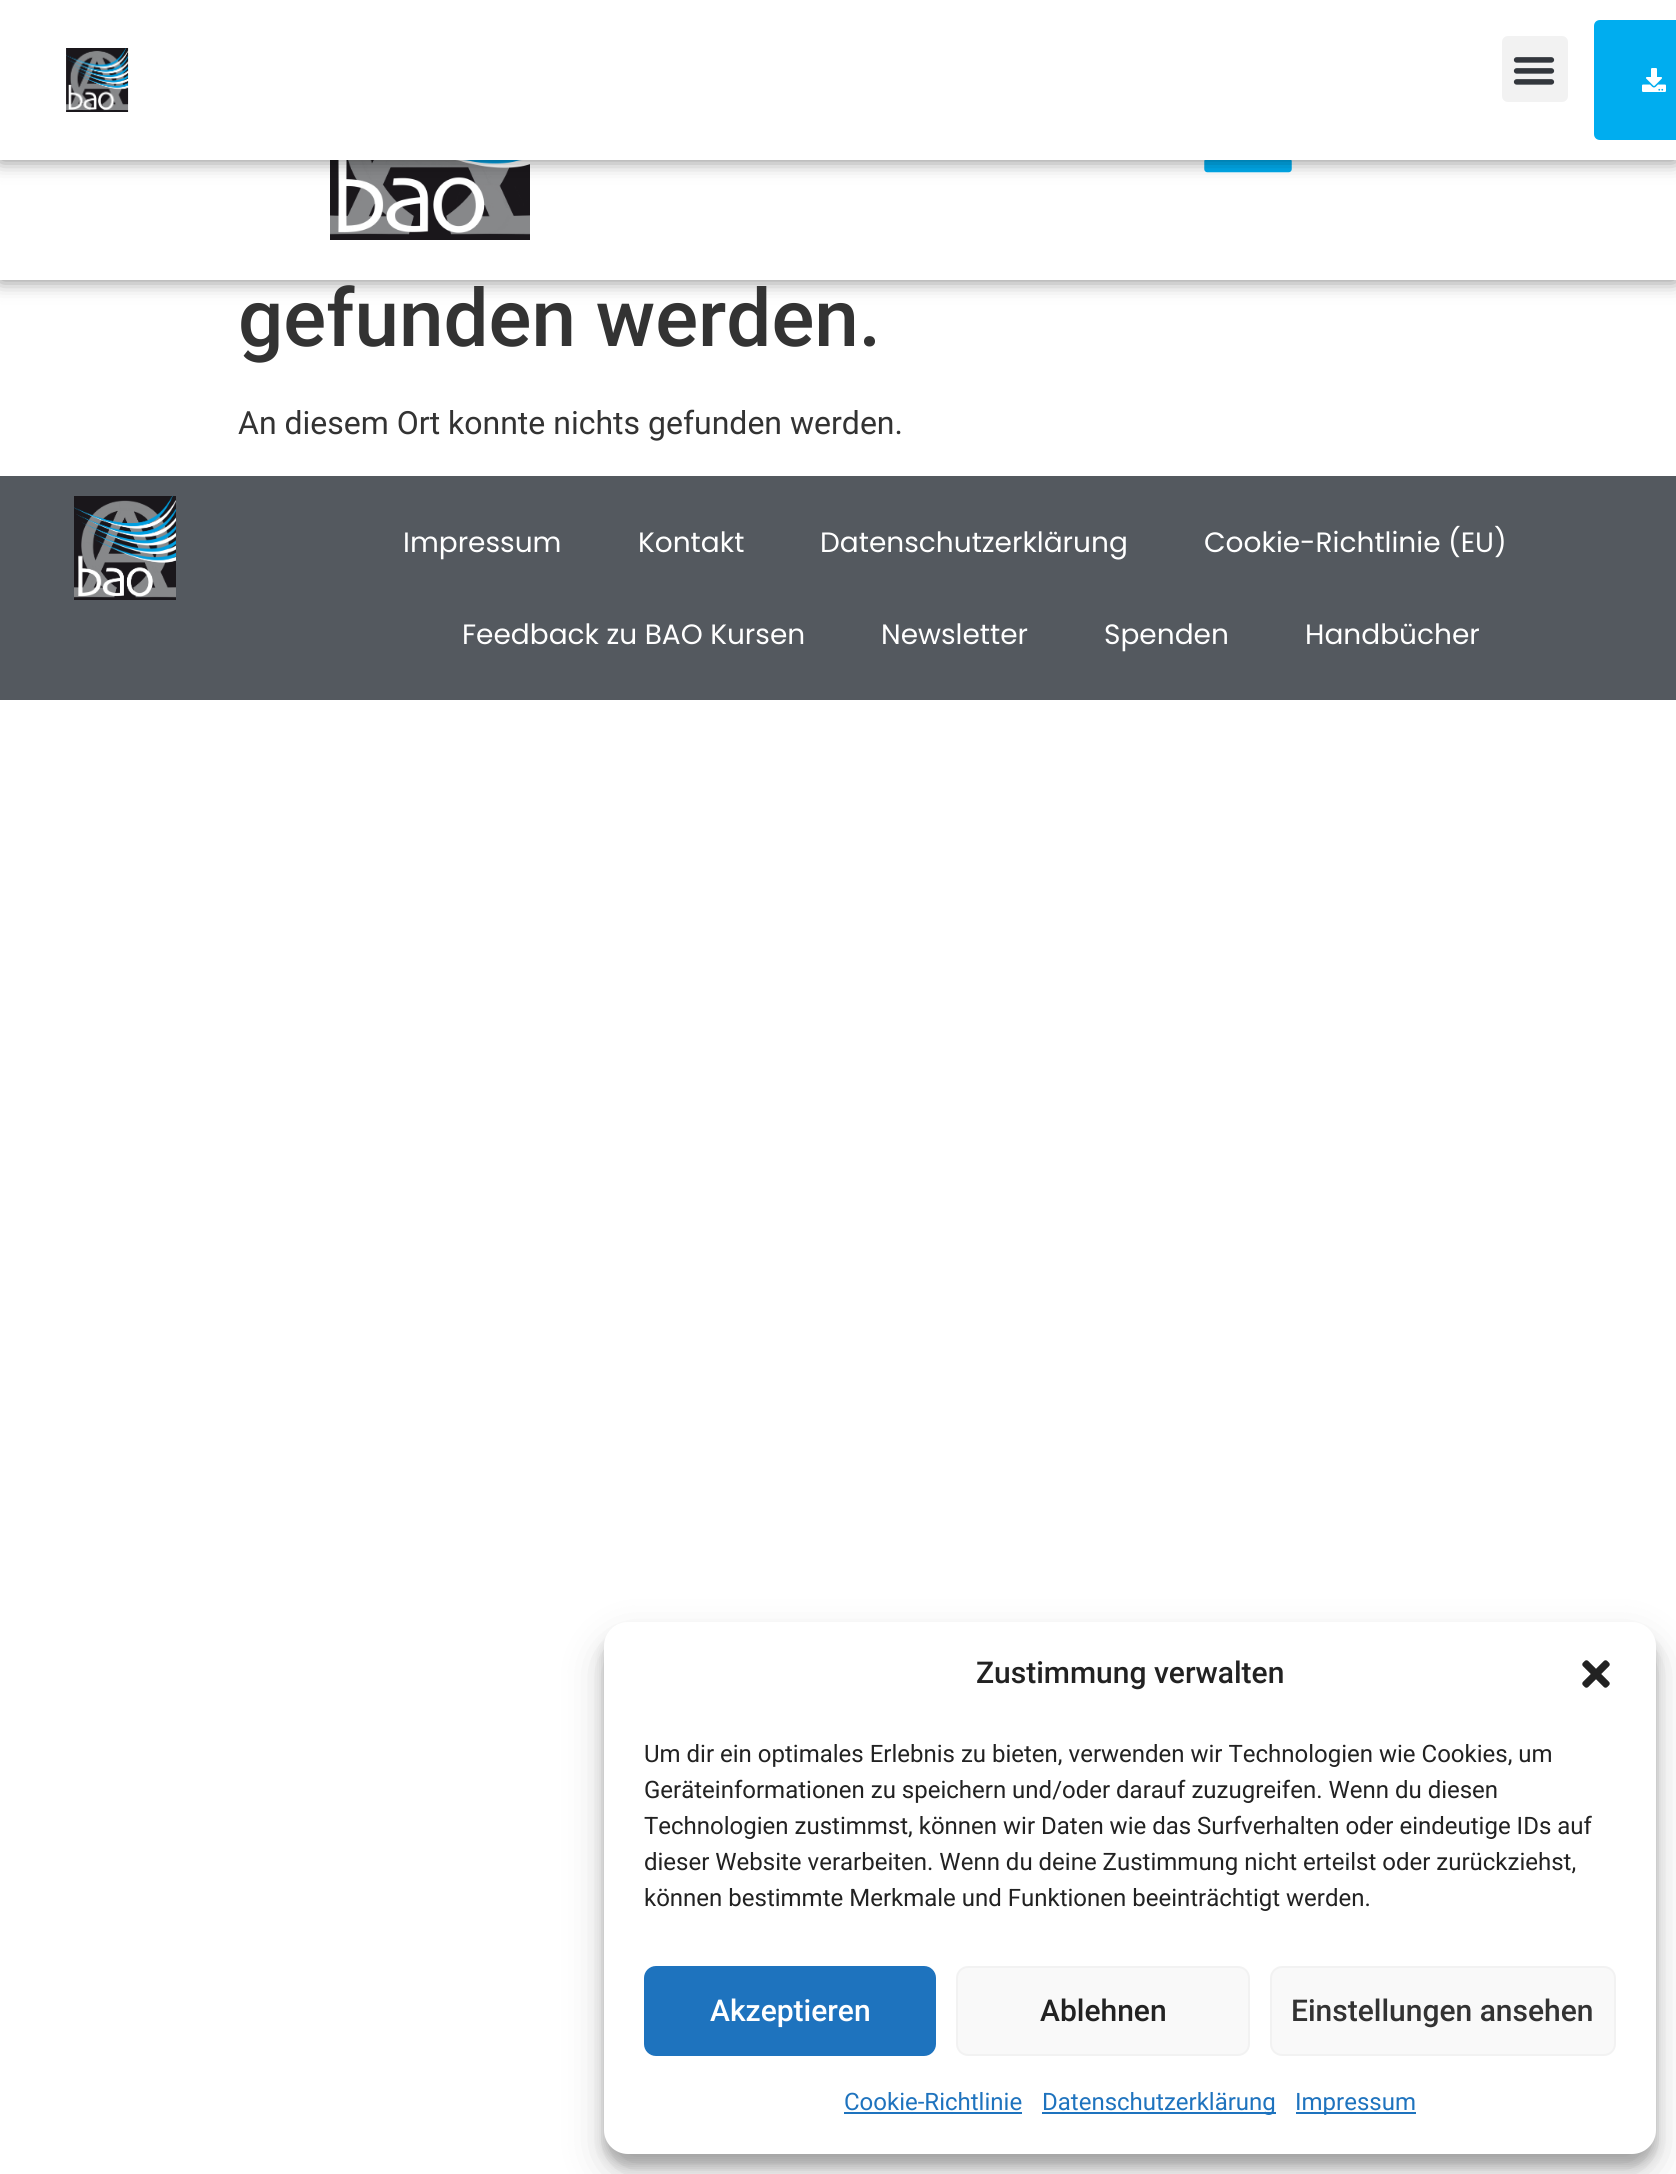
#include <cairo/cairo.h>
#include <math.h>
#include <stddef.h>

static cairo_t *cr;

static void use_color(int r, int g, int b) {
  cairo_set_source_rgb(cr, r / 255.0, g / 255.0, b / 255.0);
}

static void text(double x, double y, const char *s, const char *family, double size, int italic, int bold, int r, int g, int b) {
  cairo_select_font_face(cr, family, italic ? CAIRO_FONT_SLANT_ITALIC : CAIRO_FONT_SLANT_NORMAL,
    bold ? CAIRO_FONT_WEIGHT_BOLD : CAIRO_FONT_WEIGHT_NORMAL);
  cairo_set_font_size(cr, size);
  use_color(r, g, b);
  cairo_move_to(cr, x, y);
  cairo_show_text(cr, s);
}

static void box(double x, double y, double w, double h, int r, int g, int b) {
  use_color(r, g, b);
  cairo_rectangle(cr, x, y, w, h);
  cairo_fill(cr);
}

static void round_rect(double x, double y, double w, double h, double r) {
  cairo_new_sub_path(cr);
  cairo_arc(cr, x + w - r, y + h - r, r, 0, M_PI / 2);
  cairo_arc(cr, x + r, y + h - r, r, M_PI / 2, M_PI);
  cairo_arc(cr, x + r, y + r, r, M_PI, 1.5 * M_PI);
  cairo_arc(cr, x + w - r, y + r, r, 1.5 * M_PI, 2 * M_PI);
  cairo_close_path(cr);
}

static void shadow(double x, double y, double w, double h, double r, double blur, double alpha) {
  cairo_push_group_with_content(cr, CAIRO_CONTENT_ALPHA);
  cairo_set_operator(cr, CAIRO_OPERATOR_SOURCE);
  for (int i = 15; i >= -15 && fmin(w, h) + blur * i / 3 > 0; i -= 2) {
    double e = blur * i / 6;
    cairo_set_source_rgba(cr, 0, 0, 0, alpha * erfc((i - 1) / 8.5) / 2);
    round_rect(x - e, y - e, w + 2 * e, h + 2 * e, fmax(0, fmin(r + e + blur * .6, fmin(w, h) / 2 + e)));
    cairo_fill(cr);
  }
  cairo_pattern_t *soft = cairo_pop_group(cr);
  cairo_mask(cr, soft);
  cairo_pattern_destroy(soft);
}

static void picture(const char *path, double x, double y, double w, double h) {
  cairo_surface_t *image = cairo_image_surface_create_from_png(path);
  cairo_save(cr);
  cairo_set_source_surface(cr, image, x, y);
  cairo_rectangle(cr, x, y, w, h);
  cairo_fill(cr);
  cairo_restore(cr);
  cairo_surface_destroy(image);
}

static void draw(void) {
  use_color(255, 255, 255);
  cairo_paint(cr);
  use_color(0, 0, 0);
  shadow(0, 0, 1676, 280, 0, 10, 0.5);
  box(0, 160, 1676, 120, 255, 255, 255);
  picture("img_01.png", 330, 160, 200, 80);
  picture("img_02.png", 1204, 160, 88, 13);
  use_color(0, 0, 0);
  shadow(0, 0, 1676, 160, 0, 10, 0.5);
  box(0, 0, 1676, 160, 255, 255, 255);
  picture("img_03.png", 66, 48, 63, 64);
  use_color(242, 242, 242);
  round_rect(1502, 36, 66, 66, 6);
  cairo_fill(cr);
  picture("img_04.png", 1513, 57, 42, 28);
  use_color(0, 173, 239);
  cairo_new_path(cr);
  cairo_move_to(cr, 1600, 20);
  cairo_line_to(cr, 1676, 20);
  cairo_line_to(cr, 1676, 140);
  cairo_line_to(cr, 1600, 140);
  cairo_curve_to(cr, 1596.5, 140, 1594, 137.5, 1594, 134);
  cairo_line_to(cr, 1594, 26);
  cairo_curve_to(cr, 1594, 22.5, 1596.5, 20, 1600, 20);
  cairo_close_path(cr);
  cairo_fill(cr);
  picture("img_05.png", 1642, 68, 24, 24);
  box(0, 476, 1676, 224, 84, 89, 95);
  picture("img_06.png", 74, 496, 102, 104);
  use_color(0, 0, 0);
  shadow(604, 1634, 1052, 532, 24, 6, 0.23);
  shadow(604, 1642, 1052, 532, 24, 20, 0.19);
  use_color(255, 255, 255);
  round_rect(604, 1622, 1052, 532, 24);
  cairo_fill(cr);
  picture("img_07.png", 1582, 1660, 28, 28);
  use_color(30, 115, 190);
  round_rect(645, 1967, 290, 88, 11);
  cairo_fill_preserve(cr);
  cairo_stroke(cr);
  use_color(249, 249, 249);
  round_rect(957, 1967, 292, 88, 11);
  cairo_fill_preserve(cr);
  use_color(242, 242, 242);
  cairo_stroke(cr);
  use_color(249, 249, 249);
  round_rect(1271, 1967, 344, 88, 11);
  cairo_fill_preserve(cr);
  use_color(242, 242, 242);
  cairo_stroke(cr);
  box(844, 2112, 178, 2, 30, 115, 190);
  box(1042, 2112, 234, 2, 30, 115, 190);
  box(1296, 2112, 120, 2, 30, 115, 190);
  text(238, 346, "gefunden werden.", "Roboto Medium", 80, 0, 0, 51, 51, 51);
  text(238, 434, "An diesem Ort konnte nichts gefunden werden.", "Roboto", 32, 0, 0, 51, 51, 51);
  text(403, 552, "Impressum", "Poppins", 28, 0, 0, 255, 255, 255);
  text(638, 552, "Kontakt", "Poppins", 28, 0, 0, 255, 255, 255);
  text(820, 552, "Datenschutzerklärung", "Poppins", 28, 0, 0, 255, 255, 255);
  text(1204, 552, "Cookie-Richtlinie (EU)", "Poppins", 28, 0, 0, 255, 255, 255);
  text(462, 644, "Feedback zu BAO Kursen", "Poppins", 28, 0, 0, 255, 255, 255);
  text(881, 644, "Newsletter", "Poppins", 28, 0, 0, 255, 255, 255);
  text(1104, 644, "Spenden", "Poppins", 28, 0, 0, 255, 255, 255);
  text(1305, 644, "Handbücher", "Poppins", 28, 0, 0, 255, 255, 255);
  text(976, 1683, "Zustimmung verwalten", "Roboto Medium", 30, 0, 0, 34, 34, 34);
  text(644, 1762, "Um dir ein optimales Erlebnis zu bieten, verwenden wir Technologien wie Cookies, um", "Roboto", 24, 0, 0, 34, 34, 34);
  text(644, 1798, "Geräteinformationen zu speichern und/oder darauf zuzugreifen. Wenn du diesen", "Roboto", 24, 0, 0, 34, 34, 34);
  text(644, 1834, "Technologien zustimmst, können wir Daten wie das Surfverhalten oder eindeutige IDs auf", "Roboto", 24, 0, 0, 34, 34, 34);
  text(644, 1870, "dieser Website verarbeiten. Wenn du deine Zustimmung nicht erteilst oder zurückziehst,", "Roboto", 24, 0, 0, 34, 34, 34);
  text(644, 1906, "können bestimmte Merkmale und Funktionen beeinträchtigt werden.", "Roboto", 24, 0, 0, 34, 34, 34);
  text(710, 2021, "Akzeptieren", "Roboto Medium", 30, 0, 0, 255, 255, 255);
  text(1040, 2021, "Ablehnen", "Roboto Medium", 30, 0, 0, 34, 34, 34);
  text(1291, 2021, "Einstellungen ansehen", "Roboto Medium", 30, 0, 0, 51, 51, 51);
  text(844, 2110, "Cookie-Richtlinie", "Roboto", 24, 0, 0, 30, 115, 190);
  text(1042, 2110, "Datenschutzerklärung", "Roboto", 24, 0, 0, 30, 115, 190);
  text(1295, 2110, "Impressum", "Roboto", 24, 0, 0, 30, 115, 190);
}

int main(void) {
  cairo_surface_t *surface = cairo_image_surface_create(CAIRO_FORMAT_RGB24, 1676, 2174);
  cr = cairo_create(surface);
  cairo_font_options_t *options = cairo_font_options_create();
  cairo_font_options_set_hint_metrics(options, CAIRO_HINT_METRICS_OFF);
  cairo_font_options_set_hint_style(options, CAIRO_HINT_STYLE_NONE);
  cairo_set_font_options(cr, options);
  cairo_set_miter_limit(cr, 4);
  draw();
  cairo_surface_write_to_png(surface, "out.png");
  cairo_font_options_destroy(options);
  cairo_destroy(cr);
  cairo_surface_destroy(surface);
  return 0;
}
